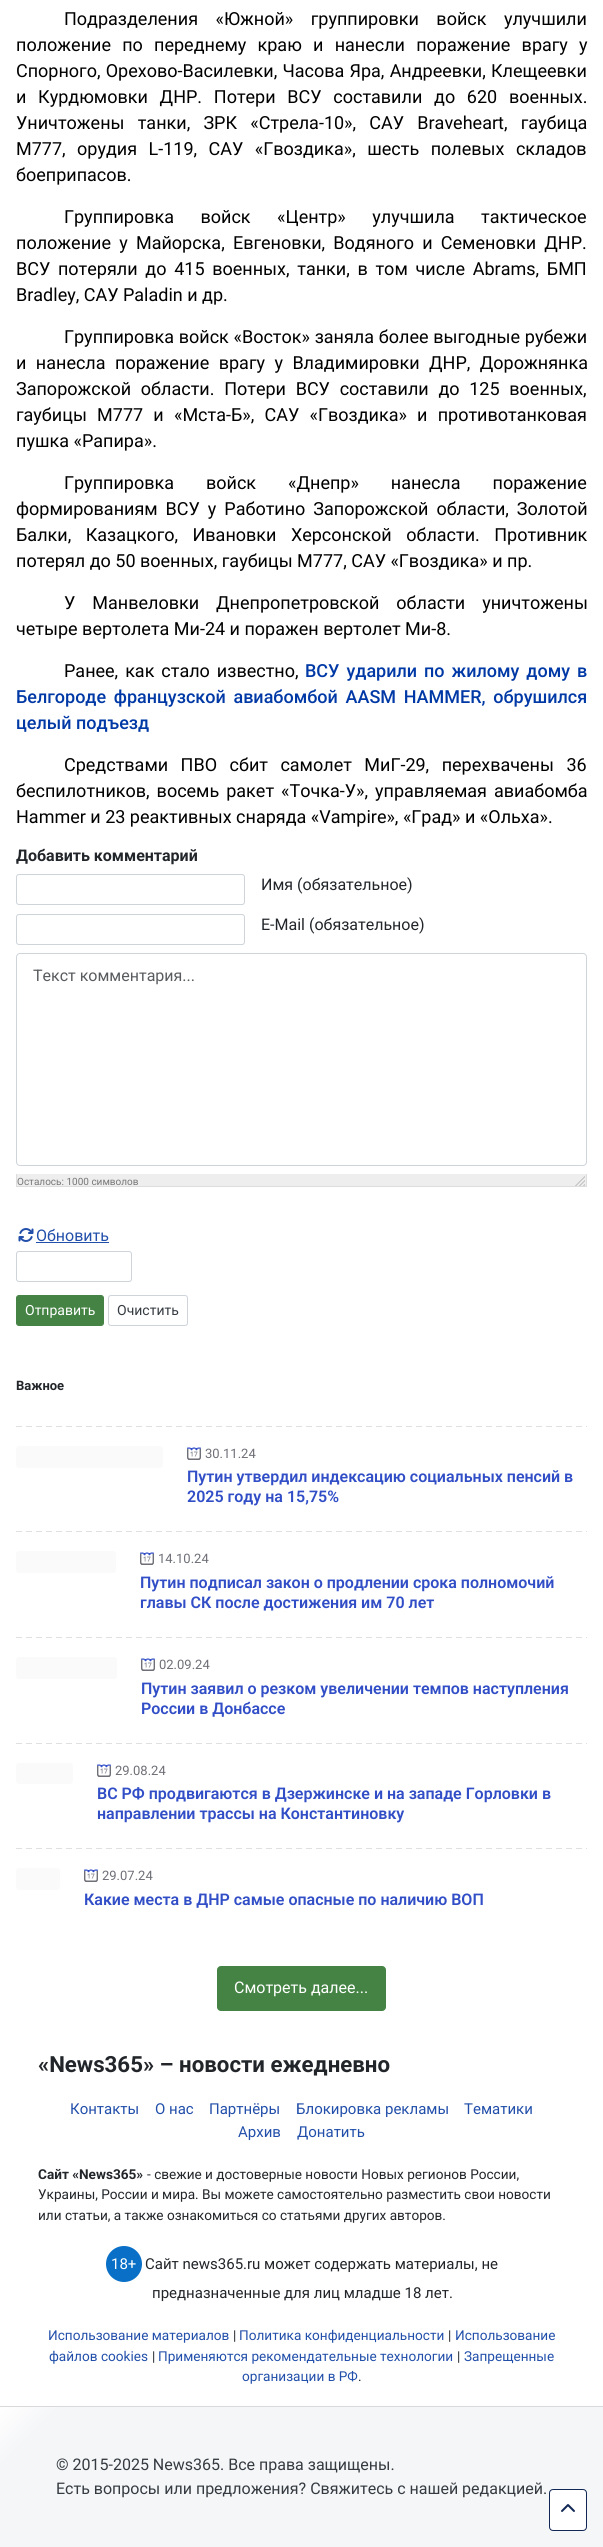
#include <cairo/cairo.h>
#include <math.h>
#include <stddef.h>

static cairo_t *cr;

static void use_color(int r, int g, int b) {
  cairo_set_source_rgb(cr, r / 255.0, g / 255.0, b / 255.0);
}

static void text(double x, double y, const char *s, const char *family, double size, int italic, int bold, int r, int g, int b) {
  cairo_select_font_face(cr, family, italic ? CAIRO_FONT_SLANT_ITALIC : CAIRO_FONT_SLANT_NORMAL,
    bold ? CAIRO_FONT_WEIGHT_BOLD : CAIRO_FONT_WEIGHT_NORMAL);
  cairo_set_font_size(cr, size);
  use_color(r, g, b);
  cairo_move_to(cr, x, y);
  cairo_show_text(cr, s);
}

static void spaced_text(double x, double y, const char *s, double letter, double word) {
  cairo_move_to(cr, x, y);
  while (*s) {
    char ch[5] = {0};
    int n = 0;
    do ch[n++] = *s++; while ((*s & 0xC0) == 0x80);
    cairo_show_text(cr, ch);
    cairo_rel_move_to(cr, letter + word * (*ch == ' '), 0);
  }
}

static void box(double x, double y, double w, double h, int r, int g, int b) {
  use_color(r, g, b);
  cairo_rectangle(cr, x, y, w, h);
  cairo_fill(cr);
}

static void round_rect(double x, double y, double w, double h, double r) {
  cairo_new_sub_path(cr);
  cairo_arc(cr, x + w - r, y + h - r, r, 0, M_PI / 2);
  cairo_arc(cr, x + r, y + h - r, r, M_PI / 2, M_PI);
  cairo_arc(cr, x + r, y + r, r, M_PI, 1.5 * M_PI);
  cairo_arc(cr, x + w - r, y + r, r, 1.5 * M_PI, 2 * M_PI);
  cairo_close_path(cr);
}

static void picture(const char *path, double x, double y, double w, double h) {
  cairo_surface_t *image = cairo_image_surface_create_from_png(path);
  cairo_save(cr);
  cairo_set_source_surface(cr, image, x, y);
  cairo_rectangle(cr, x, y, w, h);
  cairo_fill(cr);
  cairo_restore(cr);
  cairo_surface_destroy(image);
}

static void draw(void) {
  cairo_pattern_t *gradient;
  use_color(255, 255, 255);
  cairo_paint(cr);
  round_rect(16.5, 874.5, 228, 30, 2.5);
  use_color(206, 212, 218);
  cairo_set_line_width(cr, 1);
  cairo_stroke(cr);
  round_rect(16.5, 914.5, 228, 30, 2.5);
  cairo_stroke(cr);
  round_rect(16.5, 953.5, 570, 212, 3.5);
  cairo_stroke(cr);
  box(17, 1174, 569, 12, 238, 238, 238);
  picture("img_01.png", 575, 1176, 10, 10);
  box(586, 1174, 1, 13, 221, 221, 221);
  box(16, 1186, 571, 1, 221, 221, 221);
  box(16, 1174, 1, 13, 221, 221, 221);
  picture("img_02.png", 18, 1228, 16, 14);
  box(36, 1242, 73, 1, 34, 79, 170);
  round_rect(16.5, 1251.5, 115, 30, 2.5);
  use_color(206, 212, 218);
  cairo_stroke(cr);
  use_color(68, 131, 68);
  round_rect(16.5, 1295.5, 87, 30, 2.5);
  cairo_fill_preserve(cr);
  cairo_stroke(cr);
  round_rect(108.5, 1295.5, 79, 30, 2.5);
  use_color(206, 212, 218);
  cairo_stroke(cr);
  picture("img_03.png", 16, 1426, 571, 1);
  use_color(250, 250, 250);
  round_rect(16, 1446, 147, 22, 3);
  cairo_fill(cr);
  picture("img_04.png", 187, 1447, 14, 13);
  picture("img_03.png", 16, 1531, 571, 1);
  round_rect(16, 1551, 100, 22, 3);
  cairo_fill(cr);
  picture("img_04.png", 140, 1552, 14, 13);
  picture("img_03.png", 16, 1637, 571, 1);
  round_rect(16, 1657, 101, 22, 3);
  cairo_fill(cr);
  picture("img_04.png", 141, 1658, 14, 13);
  picture("img_03.png", 16, 1743, 571, 1);
  round_rect(16, 1763, 57, 21, 3);
  cairo_fill(cr);
  picture("img_04.png", 97, 1764, 14, 13);
  picture("img_03.png", 16, 1848, 571, 1);
  round_rect(16, 1868, 44, 22, 3);
  cairo_fill(cr);
  picture("img_04.png", 84, 1869, 14, 13);
  use_color(68, 131, 68);
  round_rect(217.5, 1966.5, 168, 44, 3.5);
  cairo_fill_preserve(cr);
  cairo_stroke(cr);
  use_color(9, 111, 199);
  cairo_arc(cr, 124, 2264, 18, 0, 2 * M_PI);
  cairo_fill(cr);
  gradient = cairo_pattern_create_linear(116, 2291, 487, 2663);
  cairo_pattern_add_color_stop_rgba(gradient, 0, 1, 1, 1, 1);
  cairo_pattern_add_color_stop_rgba(gradient, 0.08, 0.961, 0.965, 0.973, 1);
  cairo_set_source(cr, gradient);
  cairo_pattern_destroy(gradient);
  cairo_rectangle(cr, 0, 2407, 603, 140);
  cairo_fill(cr);
  box(0, 2406, 603, 1, 217, 217, 217);
  use_color(255, 255, 255);
  round_rect(549.5, 2489.5, 37, 41, 3.5);
  cairo_fill_preserve(cr);
  use_color(17, 40, 85);
  cairo_stroke(cr);
  picture("img_05.png", 561, 2504, 14, 8);
  cairo_select_font_face(cr, "Roboto", CAIRO_FONT_SLANT_NORMAL, CAIRO_FONT_WEIGHT_NORMAL);
  cairo_set_font_size(cr, 18);
  use_color(0, 0, 0);
  spaced_text(64, 25, "Подразделения «Южной» группировки войск улучшили", 0, 13);
  spaced_text(16, 51, "положение по переднему краю и нанесли поражение врагу у", 0, 6.75);
  spaced_text(16, 77, "Спорного, Орехово-Василевки, Часова Яра, Андреевки, Клещеевки", 0, 0.75);
  spaced_text(16, 103, "и Курдюмовки ДНР. Потери ВСУ составили до 620 военных.", 0, 7.25);
  spaced_text(16, 129, "Уничтожены танки, ЗРК «Стрела-10», САУ Braveheart, гаубица", 0, 8.75);
  spaced_text(16, 155, "М777, орудия L-119, САУ «Гвоздика», шесть полевых складов", 0, 7);
  text(16, 181, "боеприпасов.", "Roboto", 18, 0, 0, 0, 0, 0);
  spaced_text(64, 223, "Группировка войск «Центр» улучшила тактическое", 0, 22);
  spaced_text(16, 249, "положение у Майорска, Евгеновки, Водяного и Семеновки ДНР.", 0, 3.75);
  spaced_text(16, 275, "ВСУ потеряли до 415 военных, танки, в том числе Abrams, БМП", 0, 3.25);
  text(16, 301, "Bradley, САУ Paladin и др.", "Roboto", 18, 0, 0, 0, 0, 0);
  spaced_text(64, 343, "Группировка войск «Восток» заняла более выгодные рубежи", 0, 0.25);
  spaced_text(16, 369, "и нанесла поражение врагу у Владимировки ДНР, Дорожнянка", 0, 5);
  spaced_text(16, 395, "Запорожской области. Потери ВСУ составили до 125 военных,", 0, 5.25);
  spaced_text(16, 421, "гаубицы М777 и «Мста-Б», САУ «Гвоздика» и противотанковая", 0, 5.75);
  text(16, 447, "пушка «Рапира».", "Roboto", 18, 0, 0, 0, 0, 0);
  spaced_text(64, 489, "Группировка войск «Днепр» нанесла поражение", 0, 27.5);
  spaced_text(16, 515, "формированиям ВСУ у Работино Запорожской области, Золотой", 0, 3.5);
  spaced_text(16, 541, "Балки, Казацкого, Ивановки Херсонской области. Противник", 0, 10);
  text(16, 567, "потерял до 50 военных, гаубицы М777, САУ «Гвоздика» и пр.", "Roboto", 18, 0, 0, 0, 0, 0);
  spaced_text(64, 609, "У Манвеловки Днепропетровской области уничтожены", 0, 12.5);
  text(16, 635, "четыре вертолета Ми-24 и поражен вертолет Ми-8.", "Roboto", 18, 0, 0, 0, 0, 0);
  spaced_text(64, 677, "Ранее, как стало известно,", 0, 2.5);
  cairo_select_font_face(cr, "Roboto Medium", CAIRO_FONT_SLANT_NORMAL, CAIRO_FONT_WEIGHT_NORMAL);
  use_color(0, 57, 166);
  spaced_text(305, 677, "ВСУ ударили по жилому дому в", 0, 2.5);
  spaced_text(16, 703, "Белгороде французской авиабомбой AASM HAMMER, обрушился", 0, 3.25);
  text(16, 729, "целый подъезд", "Roboto Medium", 18, 0, 0, 0, 57, 166);
  cairo_select_font_face(cr, "Roboto", CAIRO_FONT_SLANT_NORMAL, CAIRO_FONT_WEIGHT_NORMAL);
  use_color(0, 0, 0);
  spaced_text(64, 771, "Средствами ПВО сбит самолет МиГ-29, перехвачены 36", 0, 8);
  spaced_text(16, 797, "беспилотников, восемь ракет «Точка-У», управляемая авиабомба", 0, 2.5);
  text(16, 823, "Hammer и 23 реактивных снаряда «Vampire», «Град» и «Ольха».", "Roboto", 18, 0, 0, 0, 0, 0);
  text(16, 861, "Добавить комментарий", "Roboto", 16, 0, 1, 34, 38, 42);
  text(261, 890, "Имя (обязательное)", "Roboto", 16, 0, 0, 34, 38, 42);
  text(261, 930, "E-Mail (обязательное)", "Roboto", 16, 0, 0, 34, 38, 42);
  text(33, 981, "Текст комментария...", "Roboto", 16, 0, 0, 89, 92, 95);
  text(17, 1185, "Осталось: 1000 символов", "Roboto", 10, 0, 0, 119, 119, 119);
  text(36, 1241, "Обновить", "Roboto", 16, 0, 0, 34, 79, 170);
  text(25, 1315, "Отправить", "Roboto", 14, 0, 0, 255, 255, 255);
  text(117, 1315, "Очистить", "Roboto", 14, 0, 0, 53, 59, 65);
  text(16, 1390, "Важное", "Roboto", 13, 0, 1, 34, 38, 42);
  text(205, 1458, "30.11.24", "Roboto", 13, 0, 0, 110, 111, 119);
  text(187, 1482, "Путин утвердил индексацию социальных пенсий в", "Roboto SemiBold", 16, 0, 0, 49, 78, 199);
  text(187, 1502, "2025 году на 15,75%", "Roboto SemiBold", 16, 0, 0, 49, 78, 199);
  text(158, 1563, "14.10.24", "Roboto", 13, 0, 0, 110, 111, 119);
  text(140, 1588, "Путин подписал закон о продлении срока полномочий", "Roboto SemiBold", 16, 0, 0, 49, 78, 199);
  text(140, 1608, "главы СК после достижения им 70 лет", "Roboto SemiBold", 16, 0, 0, 49, 78, 199);
  text(159, 1669, "02.09.24", "Roboto", 13, 0, 0, 110, 111, 119);
  text(141, 1694, "Путин заявил о резком увеличении темпов наступления", "Roboto SemiBold", 16, 0, 0, 49, 78, 199);
  text(141, 1714, "России в Донбассе", "Roboto SemiBold", 16, 0, 0, 49, 78, 199);
  text(115, 1775, "29.08.24", "Roboto", 13, 0, 0, 110, 111, 119);
  text(97, 1799, "ВС РФ продвигаются в Дзержинске и на западе Горловки в", "Roboto SemiBold", 16, 0, 0, 49, 78, 199);
  text(97, 1819, "направлении трассы на Константиновку", "Roboto SemiBold", 16, 0, 0, 49, 78, 199);
  text(102, 1880, "29.07.24", "Roboto", 13, 0, 0, 110, 111, 119);
  text(84, 1905, "Какие места в ДНР самые опасные по наличию ВОП", "Roboto SemiBold", 16, 0, 0, 49, 78, 199);
  text(234, 1993, "Смотреть далее...", "Roboto", 16, 0, 0, 255, 255, 255);
  text(38, 2072, "«News365» – новости ежедневно", "Roboto", 22.25, 0, 1, 34, 38, 42);
  text(70, 2114, "Контакты", "Roboto", 15, 0, 0, 34, 79, 170);
  text(155, 2114, "О нас", "Roboto", 15, 0, 0, 34, 79, 170);
  text(209, 2114, "Партнёры", "Roboto", 15, 0, 0, 34, 79, 170);
  text(296, 2114, "Блокировка рекламы", "Roboto", 15, 0, 0, 34, 79, 170);
  text(464, 2114, "Тематики", "Roboto", 15, 0, 0, 34, 79, 170);
  text(238, 2137, "Архив", "Roboto", 15, 0, 0, 34, 79, 170);
  text(297, 2137, "Донатить", "Roboto", 15, 0, 0, 34, 79, 170);
  text(38, 2179, "Сайт «News365»", "Roboto", 13.6, 0, 1, 34, 38, 42);
  text(147, 2179, "- свежие и достоверные новости Новых регионов России,", "Roboto", 13.6, 0, 0, 34, 38, 42);
  text(38, 2199, "Украины, России и мира. Вы можете самостоятельно разместить свои новости", "Roboto", 13.6, 0, 0, 34, 38, 42);
  text(38, 2220, "или статьи, а также ознакомиться со статьями других авторов.", "Roboto", 13.6, 0, 0, 34, 38, 42);
  text(111, 2269, "18+", "Roboto", 15, 0, 0, 255, 255, 255);
  text(145, 2269, "Сайт news365.ru может содержать материалы, не", "Roboto", 15, 0, 0, 34, 38, 42);
  text(152, 2298, "предназначенные для лиц младше 18 лет.", "Roboto", 15, 0, 0, 34, 38, 42);
  text(48, 2340, "Использование материалов", "Roboto", 13.6, 0, 0, 34, 79, 170);
  text(233, 2340, "|", "Roboto", 13.6, 0, 0, 34, 38, 42);
  text(239, 2340, "Политика конфиденциальности", "Roboto", 13.6, 0, 0, 34, 79, 170);
  text(448, 2340, "|", "Roboto", 13.6, 0, 0, 34, 38, 42);
  text(455, 2340, "Использование", "Roboto", 13.6, 0, 0, 34, 79, 170);
  text(49, 2361, "файлов cookies", "Roboto", 13.6, 0, 0, 34, 79, 170);
  text(152, 2361, "|", "Roboto", 13.6, 0, 0, 34, 38, 42);
  text(158, 2361, "Применяются рекомендательные технологии", "Roboto", 13.6, 0, 0, 34, 79, 170);
  text(457, 2361, "|", "Roboto", 13.6, 0, 0, 34, 38, 42);
  text(464, 2361, "Запрещенные", "Roboto", 13.6, 0, 0, 34, 79, 170);
  text(242, 2381, "организации в РФ", "Roboto", 13.6, 0, 0, 34, 79, 170);
  text(358, 2381, ".", "Roboto", 13.6, 0, 0, 34, 38, 42);
  text(56, 2470, "© 2015-2025 News365. Все права защищены.", "Roboto", 16, 0, 0, 53, 59, 65);
  text(56, 2494, "Есть вопросы или предложения? Свяжитесь с нашей редакцией.", "Roboto", 16, 0, 0, 53, 59, 65);
}

int main(void) {
  cairo_surface_t *surface = cairo_image_surface_create(CAIRO_FORMAT_RGB24, 603, 2547);
  cr = cairo_create(surface);
  cairo_font_options_t *options = cairo_font_options_create();
  cairo_font_options_set_hint_metrics(options, CAIRO_HINT_METRICS_OFF);
  cairo_font_options_set_hint_style(options, CAIRO_HINT_STYLE_NONE);
  cairo_set_font_options(cr, options);
  cairo_set_miter_limit(cr, 4);
  draw();
  cairo_surface_write_to_png(surface, "out.png");
  cairo_font_options_destroy(options);
  cairo_destroy(cr);
  cairo_surface_destroy(surface);
  return 0;
}
